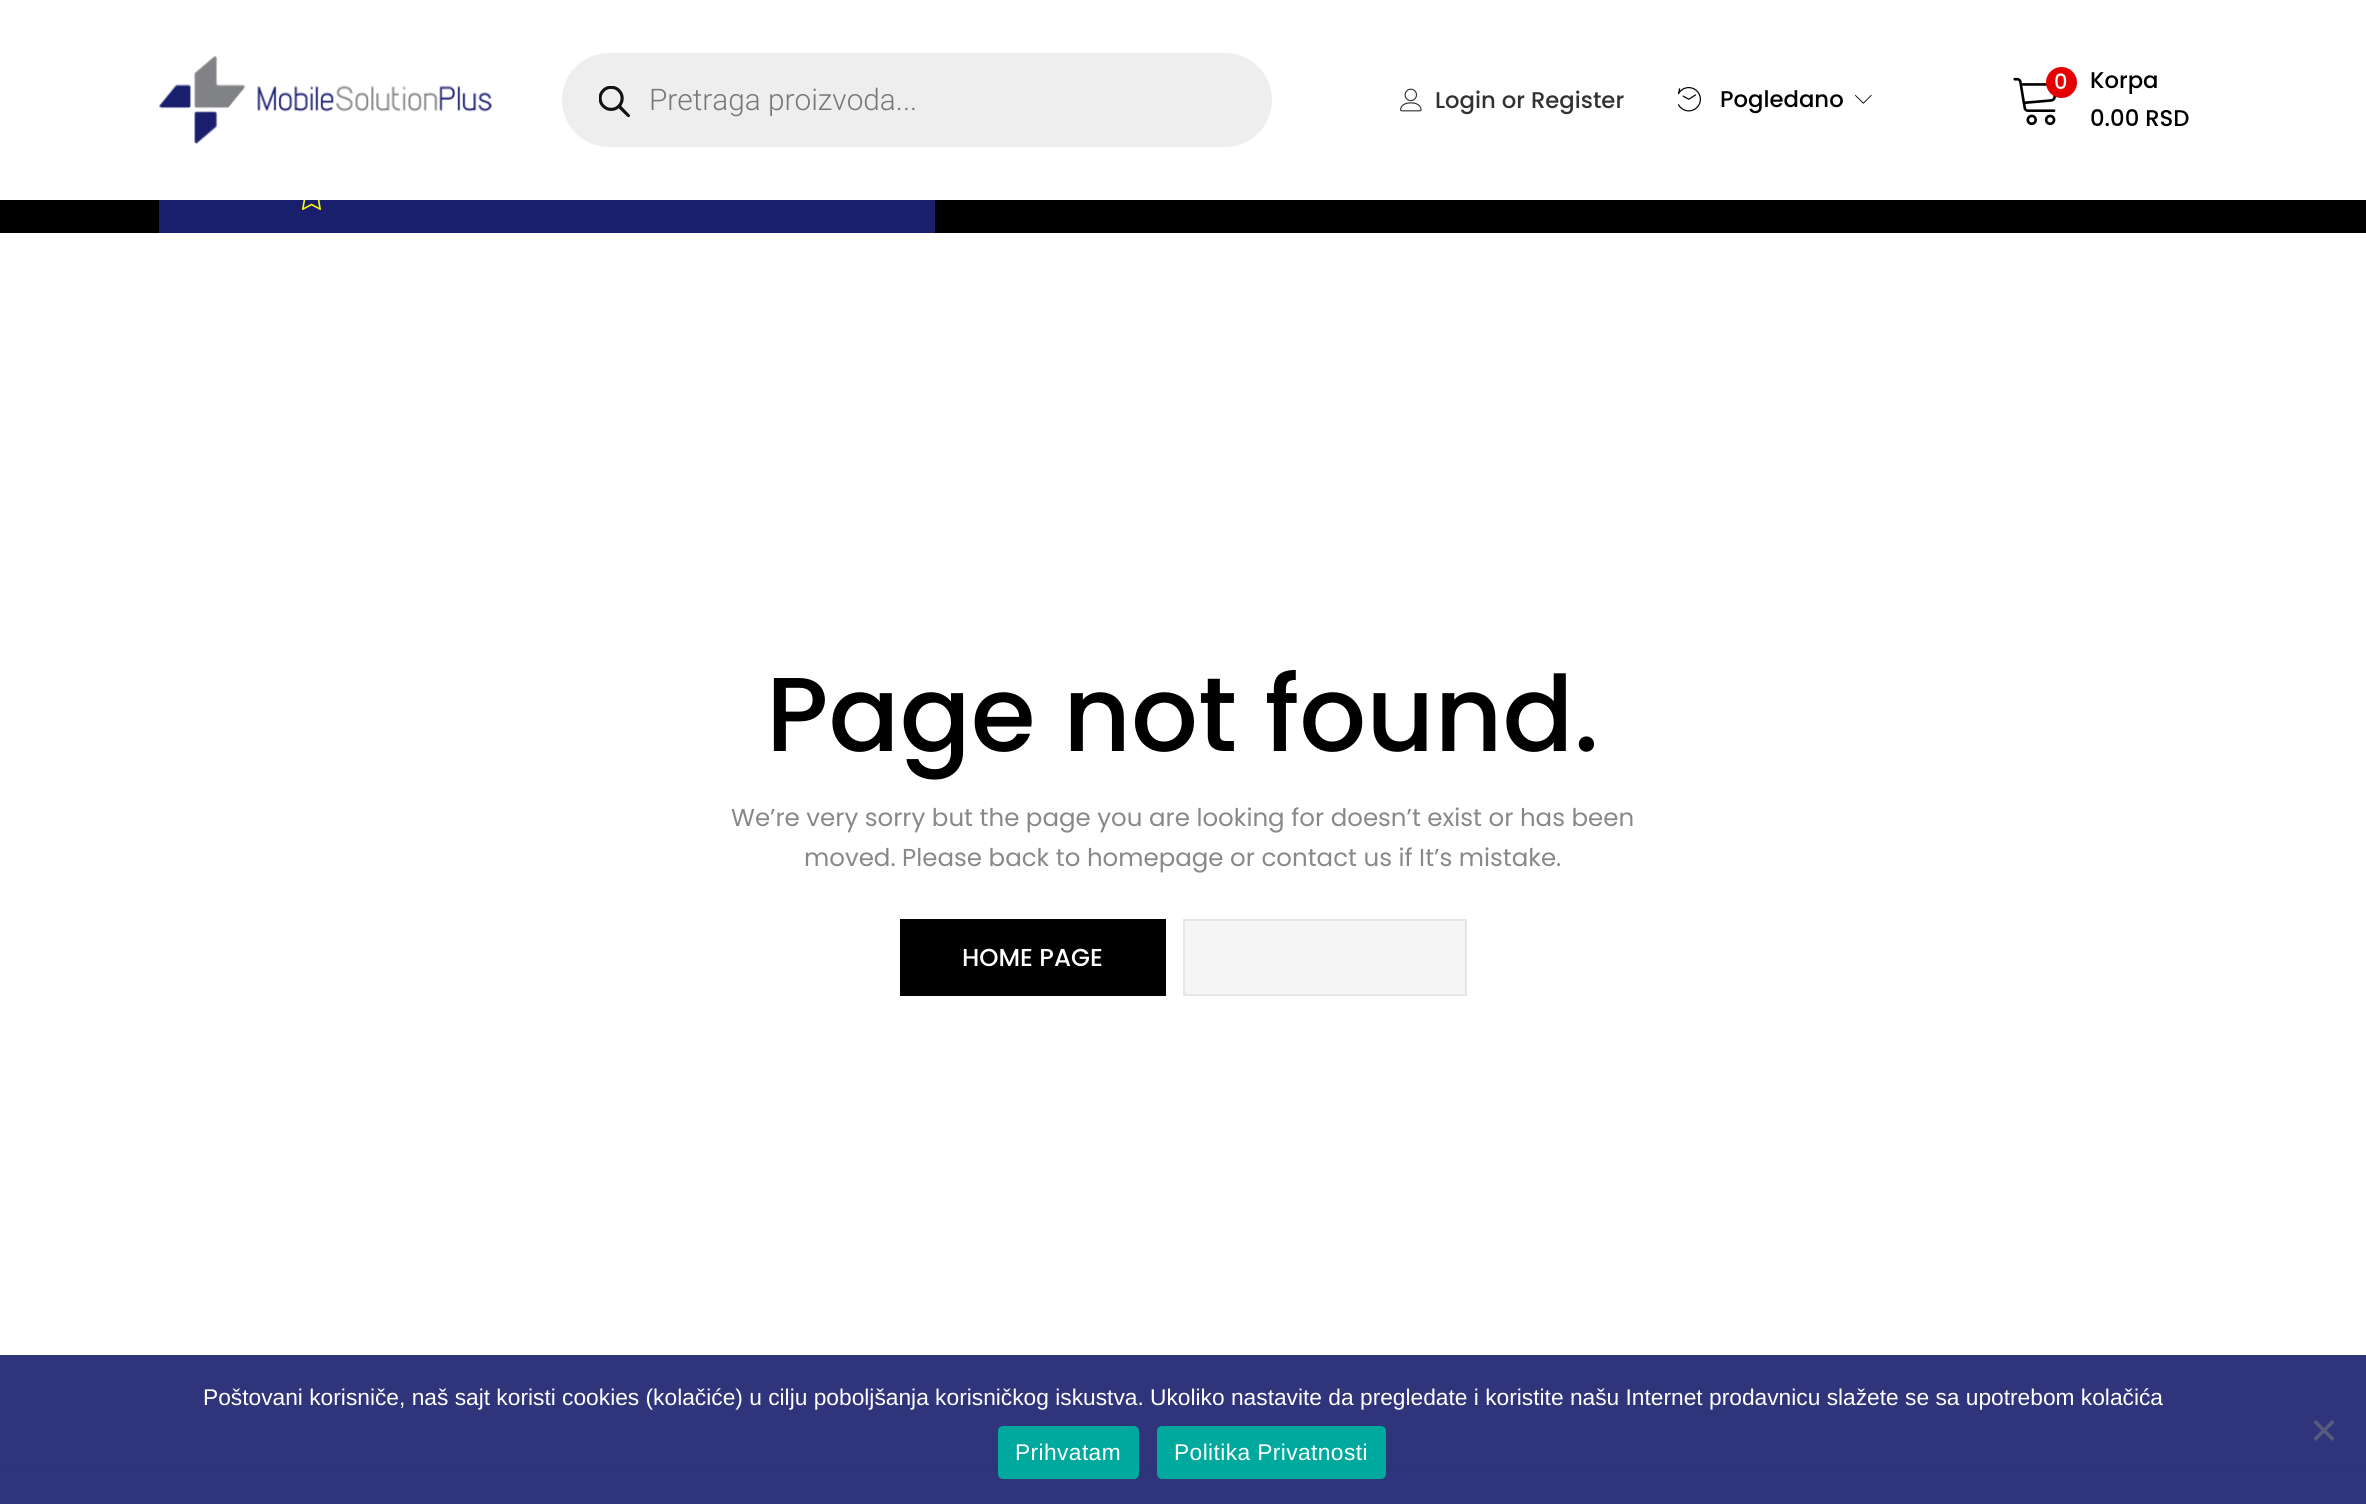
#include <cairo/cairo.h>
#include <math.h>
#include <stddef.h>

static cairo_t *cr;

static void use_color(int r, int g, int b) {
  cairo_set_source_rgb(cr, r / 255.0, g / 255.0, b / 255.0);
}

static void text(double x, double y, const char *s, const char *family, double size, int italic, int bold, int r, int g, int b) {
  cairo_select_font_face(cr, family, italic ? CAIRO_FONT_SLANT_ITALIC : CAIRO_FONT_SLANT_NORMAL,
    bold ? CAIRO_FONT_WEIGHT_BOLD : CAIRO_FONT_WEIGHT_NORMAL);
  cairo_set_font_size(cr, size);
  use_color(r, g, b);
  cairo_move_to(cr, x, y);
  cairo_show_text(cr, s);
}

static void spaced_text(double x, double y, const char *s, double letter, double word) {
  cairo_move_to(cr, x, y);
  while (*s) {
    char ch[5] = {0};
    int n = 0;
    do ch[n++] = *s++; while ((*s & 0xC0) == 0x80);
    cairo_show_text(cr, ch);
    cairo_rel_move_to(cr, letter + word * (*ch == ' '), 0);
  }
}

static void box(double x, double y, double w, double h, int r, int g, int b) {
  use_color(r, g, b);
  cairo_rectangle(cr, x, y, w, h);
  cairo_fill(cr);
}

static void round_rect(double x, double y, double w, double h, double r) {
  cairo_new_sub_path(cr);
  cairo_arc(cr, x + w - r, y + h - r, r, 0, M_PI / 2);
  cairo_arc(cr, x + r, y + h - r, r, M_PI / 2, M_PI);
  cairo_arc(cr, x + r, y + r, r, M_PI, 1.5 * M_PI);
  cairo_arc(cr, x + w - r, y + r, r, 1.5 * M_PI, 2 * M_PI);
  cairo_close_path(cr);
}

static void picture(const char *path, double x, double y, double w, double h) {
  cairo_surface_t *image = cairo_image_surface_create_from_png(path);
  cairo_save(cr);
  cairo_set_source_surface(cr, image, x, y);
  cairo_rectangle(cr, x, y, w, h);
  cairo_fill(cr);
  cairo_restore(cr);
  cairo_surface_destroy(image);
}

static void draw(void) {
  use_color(255, 255, 255);
  cairo_paint(cr);
  box(0, 1355, 2366, 149, 48, 53, 123);
  picture("img_01.png", 159, 56, 333, 88);
  use_color(238, 238, 238);
  round_rect(562, 53, 710, 94, 47);
  cairo_fill(cr);
  picture("img_02.png", 599, 86, 31, 31);
  picture("img_03.png", 1400, 88, 22, 24);
  picture("img_04.png", 1677, 87, 24, 25);
  picture("img_05.png", 1855, 95, 17, 9);
  picture("img_06.png", 2013, 77, 43, 49);
  use_color(228, 1, 1);
  cairo_arc(cr, 2061.5, 82.5, 15.5, 0, 2 * M_PI);
  cairo_fill(cr);
  box(0, 200, 2366, 33, 0, 0, 0);
  box(159, 200, 776, 33, 25, 31, 108);
  picture("img_07.png", 302, 200, 19, 10);
  box(900, 919, 266, 77, 0, 0, 0);
  use_color(245, 245, 245);
  cairo_rectangle(cr, 1184, 920, 282, 75);
  cairo_fill_preserve(cr);
  use_color(229, 229, 229);
  cairo_stroke(cr);
  box(0, 1468, 2366, 2, 45, 51, 120);
  use_color(88, 91, 125);
  cairo_new_path(cr);
  cairo_move_to(cr, 2332, 1420);
  cairo_line_to(cr, 2334.5, 1422.5);
  cairo_line_to(cr, 2316, 1441);
  cairo_line_to(cr, 2313.5, 1438.5);
  cairo_close_path(cr);
  cairo_fill(cr);
  cairo_new_path(cr);
  cairo_move_to(cr, 2313.5, 1422.5);
  cairo_line_to(cr, 2316, 1420);
  cairo_line_to(cr, 2334.5, 1438.5);
  cairo_line_to(cr, 2332, 1441);
  cairo_close_path(cr);
  cairo_fill(cr);
  use_color(0, 169, 157);
  round_rect(998, 1426, 141, 53, 5);
  cairo_fill(cr);
  round_rect(1157, 1426, 229, 53, 5);
  cairo_fill(cr);
  text(649, 110, "Pretraga proizvoda...", "Roboto Light", 29.75, 0, 0, 119, 119, 119);
  text(1435, 108, "Login or Register", "Poppins Medium", 22.75, 0, 0, 50, 50, 50);
  text(1720, 107, "Pogledano", "Poppins Medium", 22.75, 0, 0, 0, 0, 0);
  text(2054, 89, "0", "Poppins Medium", 21, 0, 0, 255, 255, 255);
  text(2090, 88, "Korpa", "Poppins Medium", 22.75, 0, 0, 0, 0, 0);
  text(2090, 126, "0.00 RSD", "Poppins Medium", 22.75, 0, 0, 0, 0, 0);
  text(766, 751, "Page not found.", "Poppins Medium", 105, 0, 0, 0, 0, 0);
  text(731, 826, "We’re very sorry but the page you are looking for doesn’t exist or has been", "Poppins", 24.5, 0, 0, 136, 136, 136);
  text(804, 866, "moved. Please back to homepage or contact us if It’s mistake.", "Poppins", 24.5, 0, 0, 136, 136, 136);
  text(962, 966, "HOME PAGE", "Poppins Medium", 24.5, 0, 0, 255, 255, 255);
  text(203, 1405, "Poštovani korisniče, naš sajt koristi cookies (kolačiće) u cilju poboljšanja korisničkog iskustva. Ukoliko nastavite da pregledate i koristite našu Internet prodavnicu slažete se sa upotrebom kolačića", "Liberation Sans", 22.75, 0, 0, 255, 255, 255);
  spaced_text(1015, 1460, "Prihvatam", 0.4, 0);
  spaced_text(1174, 1460, "Politika Privatnosti", 0.4, 0);
}

int main(void) {
  cairo_surface_t *surface = cairo_image_surface_create(CAIRO_FORMAT_RGB24, 2366, 1504);
  cr = cairo_create(surface);
  cairo_font_options_t *options = cairo_font_options_create();
  cairo_font_options_set_hint_metrics(options, CAIRO_HINT_METRICS_OFF);
  cairo_font_options_set_hint_style(options, CAIRO_HINT_STYLE_NONE);
  cairo_set_font_options(cr, options);
  cairo_set_miter_limit(cr, 4);
  draw();
  cairo_surface_write_to_png(surface, "out.png");
  cairo_font_options_destroy(options);
  cairo_destroy(cr);
  cairo_surface_destroy(surface);
  return 0;
}
